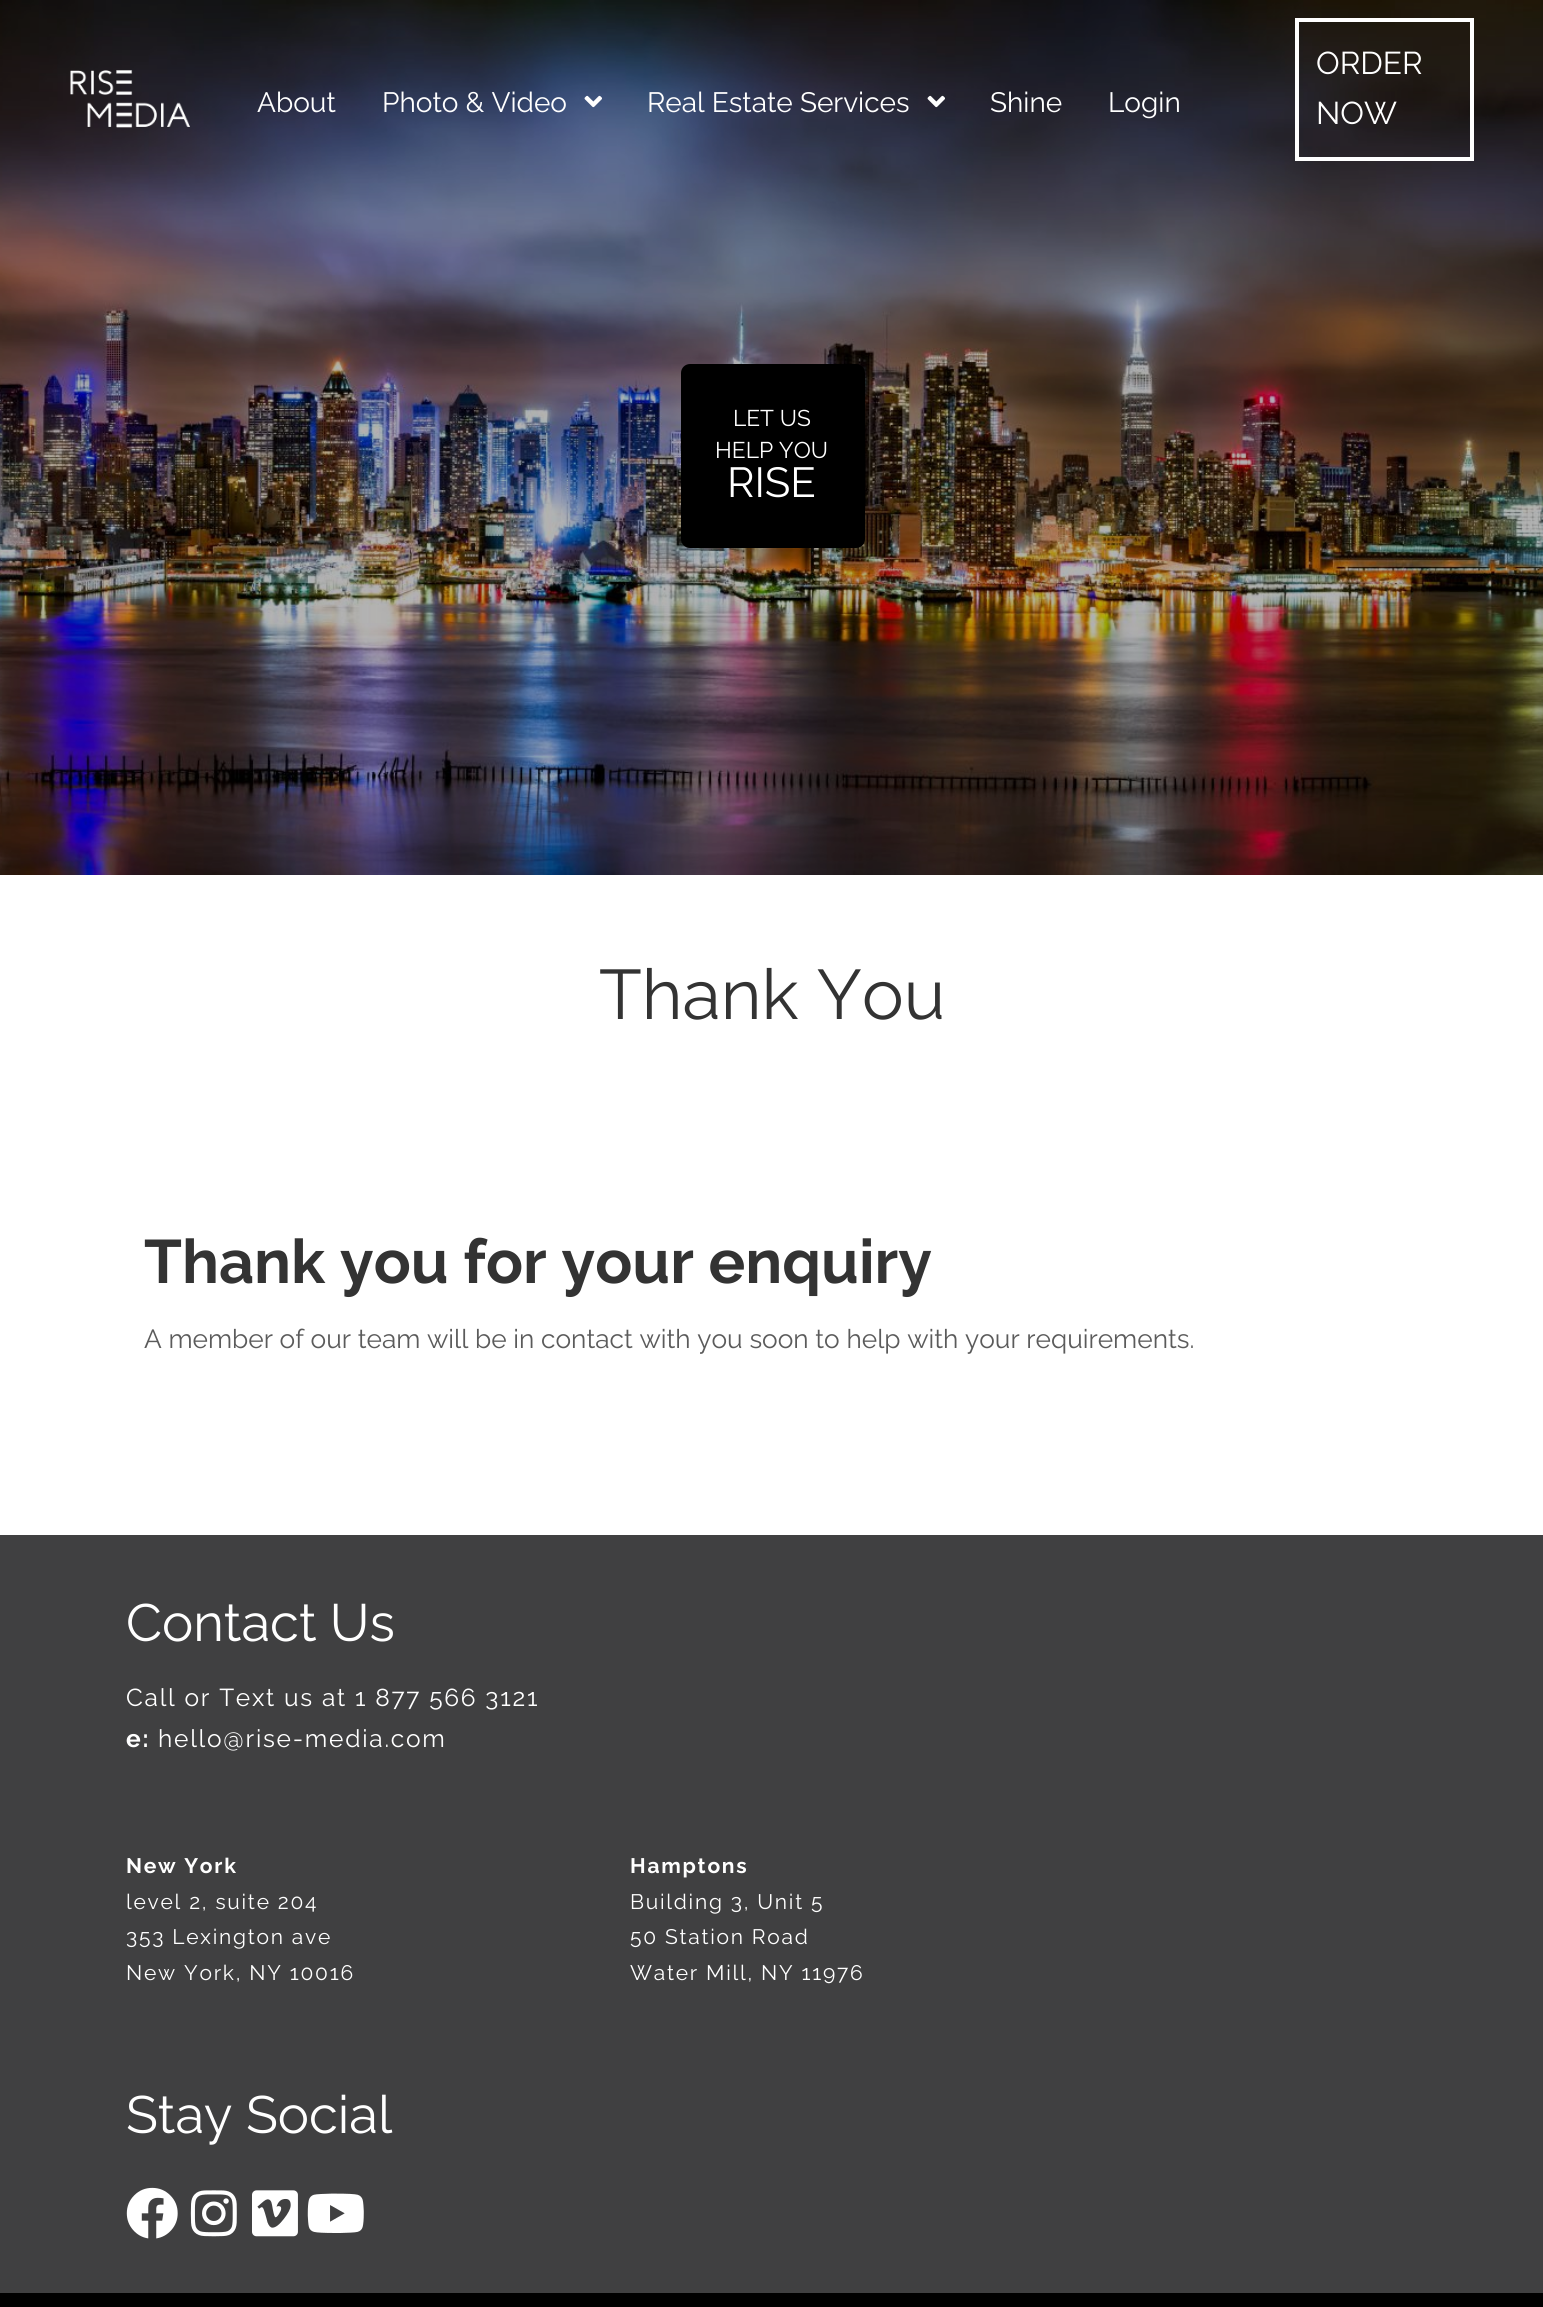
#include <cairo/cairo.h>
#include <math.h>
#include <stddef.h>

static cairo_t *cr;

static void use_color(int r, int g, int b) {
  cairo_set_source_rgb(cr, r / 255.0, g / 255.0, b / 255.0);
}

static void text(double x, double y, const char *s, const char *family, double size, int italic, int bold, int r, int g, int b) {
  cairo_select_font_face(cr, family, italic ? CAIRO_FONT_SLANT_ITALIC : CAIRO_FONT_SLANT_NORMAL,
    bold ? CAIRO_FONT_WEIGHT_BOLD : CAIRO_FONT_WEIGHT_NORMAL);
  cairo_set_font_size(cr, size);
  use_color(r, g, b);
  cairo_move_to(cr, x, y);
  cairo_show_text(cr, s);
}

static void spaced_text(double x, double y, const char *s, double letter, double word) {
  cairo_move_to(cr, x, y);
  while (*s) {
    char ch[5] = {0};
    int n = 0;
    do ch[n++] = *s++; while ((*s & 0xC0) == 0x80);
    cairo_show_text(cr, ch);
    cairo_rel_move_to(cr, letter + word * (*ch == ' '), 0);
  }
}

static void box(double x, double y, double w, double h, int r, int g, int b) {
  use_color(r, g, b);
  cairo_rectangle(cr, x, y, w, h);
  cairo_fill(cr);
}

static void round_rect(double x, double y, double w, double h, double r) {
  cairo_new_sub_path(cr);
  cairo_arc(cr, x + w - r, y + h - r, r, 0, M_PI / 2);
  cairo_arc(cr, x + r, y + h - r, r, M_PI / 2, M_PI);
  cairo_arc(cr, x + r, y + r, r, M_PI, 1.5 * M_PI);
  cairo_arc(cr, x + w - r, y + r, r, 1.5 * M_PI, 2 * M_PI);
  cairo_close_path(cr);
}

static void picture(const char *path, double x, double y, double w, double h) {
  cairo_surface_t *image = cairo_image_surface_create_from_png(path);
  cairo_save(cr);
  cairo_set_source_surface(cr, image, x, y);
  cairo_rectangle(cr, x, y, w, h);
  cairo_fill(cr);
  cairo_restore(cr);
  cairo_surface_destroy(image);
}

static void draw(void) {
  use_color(255, 255, 255);
  cairo_paint(cr);
  picture("img_04.png", 0, 0, 1543, 875);
  picture("img_01.png", 70, 70, 120, 58);
  picture("img_02.png", 584, 95, 18, 13);
  picture("img_03.png", 927, 95, 18, 13);
  cairo_rectangle(cr, 1297, 20, 175, 139);
  use_color(255, 255, 255);
  cairo_set_line_width(cr, 4);
  cairo_stroke(cr);
  use_color(0, 0, 0);
  round_rect(682, 365, 182, 182, 8);
  cairo_fill_preserve(cr);
  cairo_set_line_width(cr, 2);
  cairo_stroke(cr);
  box(0, 1535, 1543, 758, 64, 64, 65);
  picture("img_05.png", 126, 2187, 52, 52);
  picture("img_06.png", 190, 2190, 47, 47);
  picture("img_07.png", 252, 2190, 46, 47);
  picture("img_08.png", 307, 2193, 57, 40);
  box(0, 2293, 1543, 14, 0, 0, 0);
  text(257, 112, "About", "Raleway", 28, 0, 0, 255, 255, 255);
  text(382, 112, "Photo & Video", "Raleway", 28, 0, 0, 255, 255, 255);
  text(647, 112, "Real Estate Services", "Raleway", 28, 0, 0, 255, 255, 255);
  text(990, 112, "Shine", "Raleway", 28, 0, 0, 255, 255, 255);
  text(1108, 112, "Login", "Raleway", 28, 0, 0, 255, 255, 255);
  text(1316, 74, "ORDER", "Raleway", 31.5, 0, 0, 255, 255, 255);
  text(1316, 124, "NOW", "Raleway", 31.5, 0, 0, 255, 255, 255);
  text(733, 426, "LET US", "Raleway", 22.75, 0, 0, 255, 255, 255);
  text(715, 458, "HELP YOU", "Raleway", 22.75, 0, 0, 255, 255, 255);
  text(727, 497, "RISE", "Raleway", 42, 0, 0, 255, 255, 255);
  text(599, 1019, "Thank You", "Raleway", 70, 0, 0, 51, 51, 51);
  text(144, 1283, "Thank you for your enquiry", "Raleway", 61.25, 0, 1, 51, 51, 51);
  text(144, 1348, "A member of our team will be in contact with you soon to help with your requirements.", "Raleway", 26.25, 0, 0, 91, 91, 91);
  text(126, 1641, "Contact Us", "Raleway", 52.5, 0, 0, 255, 255, 255);
  cairo_set_font_size(cr, 24.5);
  spaced_text(126, 1706, "Call or Text us at 1 877 566 3121", 1.75, 0);
  cairo_select_font_face(cr, "Raleway", CAIRO_FONT_SLANT_NORMAL, CAIRO_FONT_WEIGHT_BOLD);
  spaced_text(126, 1747, "e:", 1.75, 0);
  cairo_select_font_face(cr, "Raleway", CAIRO_FONT_SLANT_NORMAL, CAIRO_FONT_WEIGHT_NORMAL);
  spaced_text(158, 1747, "hello@rise-media.com", 1.75, 0);
  cairo_select_font_face(cr, "Raleway", CAIRO_FONT_SLANT_NORMAL, CAIRO_FONT_WEIGHT_BOLD);
  cairo_set_font_size(cr, 21);
  spaced_text(126, 1873, "New York", 1.75, 0);
  cairo_select_font_face(cr, "Raleway", CAIRO_FONT_SLANT_NORMAL, CAIRO_FONT_WEIGHT_NORMAL);
  spaced_text(126, 1909, "level 2, suite 204", 1.75, 0);
  spaced_text(126, 1944, "353 Lexington ave", 1.75, 0);
  spaced_text(126, 1980, "New York, NY 10016", 1.75, 0);
  cairo_select_font_face(cr, "Raleway", CAIRO_FONT_SLANT_NORMAL, CAIRO_FONT_WEIGHT_BOLD);
  spaced_text(630, 1873, "Hamptons", 1.75, 0);
  cairo_select_font_face(cr, "Raleway", CAIRO_FONT_SLANT_NORMAL, CAIRO_FONT_WEIGHT_NORMAL);
  spaced_text(630, 1909, "Building 3, Unit 5", 1.75, 0);
  spaced_text(630, 1944, "50 Station Road", 1.75, 0);
  spaced_text(630, 1980, "Water Mill, NY 11976", 1.75, 0);
  text(126, 2133, "Stay Social", "Raleway", 52.5, 0, 0, 255, 255, 255);
}

int main(void) {
  cairo_surface_t *surface = cairo_image_surface_create(CAIRO_FORMAT_RGB24, 1543, 2307);
  cr = cairo_create(surface);
  cairo_font_options_t *options = cairo_font_options_create();
  cairo_font_options_set_hint_metrics(options, CAIRO_HINT_METRICS_OFF);
  cairo_font_options_set_hint_style(options, CAIRO_HINT_STYLE_NONE);
  cairo_set_font_options(cr, options);
  cairo_set_miter_limit(cr, 4);
  draw();
  cairo_surface_write_to_png(surface, "out.png");
  cairo_font_options_destroy(options);
  cairo_destroy(cr);
  cairo_surface_destroy(surface);
  return 0;
}
